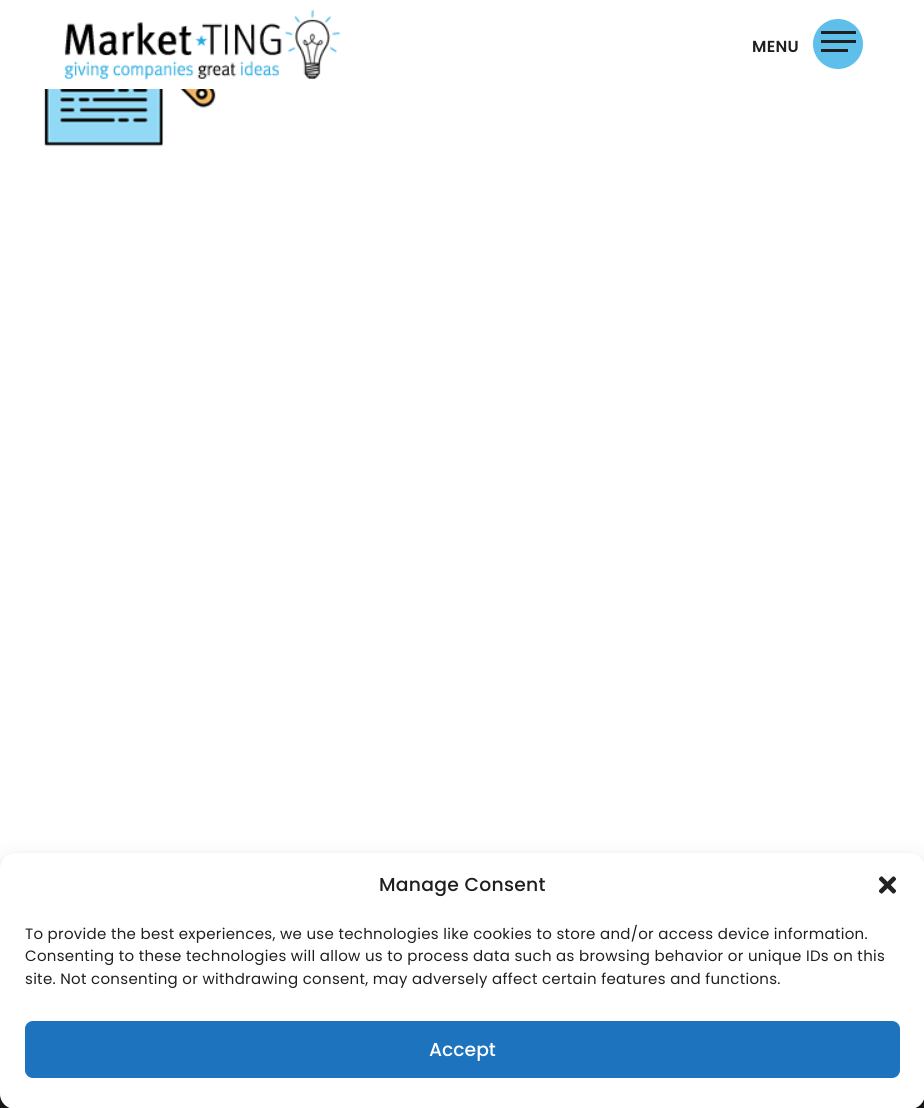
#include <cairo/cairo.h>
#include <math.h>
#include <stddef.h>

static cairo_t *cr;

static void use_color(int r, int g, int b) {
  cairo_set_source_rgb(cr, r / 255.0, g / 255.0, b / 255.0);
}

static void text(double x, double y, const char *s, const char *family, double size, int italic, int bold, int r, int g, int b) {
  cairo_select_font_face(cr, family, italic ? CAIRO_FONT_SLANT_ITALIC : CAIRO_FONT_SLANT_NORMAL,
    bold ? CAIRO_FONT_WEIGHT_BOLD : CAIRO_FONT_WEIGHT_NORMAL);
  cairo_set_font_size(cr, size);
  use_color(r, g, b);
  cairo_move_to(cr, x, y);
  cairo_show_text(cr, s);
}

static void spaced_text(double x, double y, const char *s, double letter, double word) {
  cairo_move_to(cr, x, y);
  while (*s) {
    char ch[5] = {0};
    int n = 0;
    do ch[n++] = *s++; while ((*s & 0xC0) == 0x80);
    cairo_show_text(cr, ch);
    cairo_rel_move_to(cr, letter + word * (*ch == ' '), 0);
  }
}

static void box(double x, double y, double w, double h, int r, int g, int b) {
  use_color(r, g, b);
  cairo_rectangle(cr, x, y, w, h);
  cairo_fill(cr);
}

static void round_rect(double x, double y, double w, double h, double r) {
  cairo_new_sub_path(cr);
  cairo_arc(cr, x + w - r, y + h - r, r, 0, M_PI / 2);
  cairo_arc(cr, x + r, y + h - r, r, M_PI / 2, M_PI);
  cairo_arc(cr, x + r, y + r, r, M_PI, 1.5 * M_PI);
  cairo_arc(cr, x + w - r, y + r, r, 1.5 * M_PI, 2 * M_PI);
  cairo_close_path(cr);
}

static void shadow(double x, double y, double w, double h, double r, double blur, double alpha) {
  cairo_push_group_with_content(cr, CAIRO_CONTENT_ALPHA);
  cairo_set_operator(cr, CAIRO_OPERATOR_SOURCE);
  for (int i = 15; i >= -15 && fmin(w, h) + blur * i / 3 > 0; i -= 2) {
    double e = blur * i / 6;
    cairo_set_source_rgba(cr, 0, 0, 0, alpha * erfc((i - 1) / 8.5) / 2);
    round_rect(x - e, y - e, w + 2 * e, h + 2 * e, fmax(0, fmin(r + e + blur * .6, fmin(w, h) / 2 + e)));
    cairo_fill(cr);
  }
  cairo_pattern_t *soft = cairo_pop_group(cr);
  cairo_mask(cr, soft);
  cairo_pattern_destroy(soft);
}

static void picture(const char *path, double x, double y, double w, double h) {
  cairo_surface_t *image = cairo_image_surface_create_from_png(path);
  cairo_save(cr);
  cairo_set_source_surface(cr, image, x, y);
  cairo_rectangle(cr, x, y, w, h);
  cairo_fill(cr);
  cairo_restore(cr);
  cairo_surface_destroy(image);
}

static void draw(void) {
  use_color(255, 255, 255);
  cairo_paint(cr);
  box(0, 1094, 924, 14, 31, 31, 31);
  cairo_save(cr);
  cairo_rectangle(cr, 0, 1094, 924, 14);
  cairo_clip(cr);
  use_color(0, 0, 0);
  shadow(0, -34, 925, 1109, 0, 37.5, 0.2);
  cairo_restore(cr);
  cairo_save(cr);
  cairo_rectangle(cr, 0, 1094, 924, 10);
  cairo_clip(cr);
  use_color(0, 0, 0);
  shadow(0, -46, 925, 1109, 0, 25, 0.7);
  cairo_restore(cr);
  picture("img_01.png", 43, 89, 173, 58);
  picture("img_02.png", 64, 10, 277, 70);
  use_color(94, 191, 234);
  cairo_arc(cr, 838, 44, 25, 0, 2 * M_PI);
  cairo_fill(cr);
  box(821, 31, 35, 3, 31, 31, 31);
  box(821, 40, 35, 3, 31, 31, 31);
  box(821, 49, 27, 3, 31, 31, 31);
  use_color(0, 0, 0);
  shadow(0, 860, 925, 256, 15, 4, 0.23);
  shadow(0, 865, 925, 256, 15, 12.5, 0.19);
  use_color(255, 255, 255);
  round_rect(0, 853, 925, 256, 15);
  cairo_fill(cr);
  picture("img_03.png", 878, 876, 19, 18);
  use_color(30, 115, 190);
  round_rect(25.5, 1021.5, 874, 56, 7.5);
  cairo_fill_preserve(cr);
  cairo_set_line_width(cr, 1);
  cairo_stroke(cr);
  cairo_select_font_face(cr, "Poppins SemiBold", CAIRO_FONT_SLANT_NORMAL, CAIRO_FONT_WEIGHT_NORMAL);
  cairo_set_font_size(cr, 16);
  use_color(31, 31, 31);
  spaced_text(752, 52, "MENU", 0.3, 0);
  cairo_select_font_face(cr, "Poppins Medium", CAIRO_FONT_SLANT_NORMAL, CAIRO_FONT_WEIGHT_NORMAL);
  cairo_set_font_size(cr, 18.75);
  spaced_text(379, 891, "Manage Consent", 0.3, 0);
  cairo_select_font_face(cr, "Poppins", CAIRO_FONT_SLANT_NORMAL, CAIRO_FONT_WEIGHT_NORMAL);
  cairo_set_font_size(cr, 15);
  spaced_text(25, 939, "To provide the best experiences, we use technologies like cookies to store and/or access device information.", 0.3, 0);
  spaced_text(25, 961, "Consenting to these technologies will allow us to process data such as browsing behavior or unique IDs on this", 0.3, 0);
  spaced_text(25, 984, "site. Not consenting or withdrawing consent, may adversely affect certain features and functions.", 0.3, 0);
  text(429, 1056, "Accept", "Poppins Medium", 18.75, 0, 0, 255, 255, 255);
}

int main(void) {
  cairo_surface_t *surface = cairo_image_surface_create(CAIRO_FORMAT_RGB24, 924, 1108);
  cr = cairo_create(surface);
  cairo_font_options_t *options = cairo_font_options_create();
  cairo_font_options_set_hint_metrics(options, CAIRO_HINT_METRICS_OFF);
  cairo_font_options_set_hint_style(options, CAIRO_HINT_STYLE_NONE);
  cairo_set_font_options(cr, options);
  cairo_set_miter_limit(cr, 4);
  draw();
  cairo_surface_write_to_png(surface, "out.png");
  cairo_font_options_destroy(options);
  cairo_destroy(cr);
  cairo_surface_destroy(surface);
  return 0;
}
